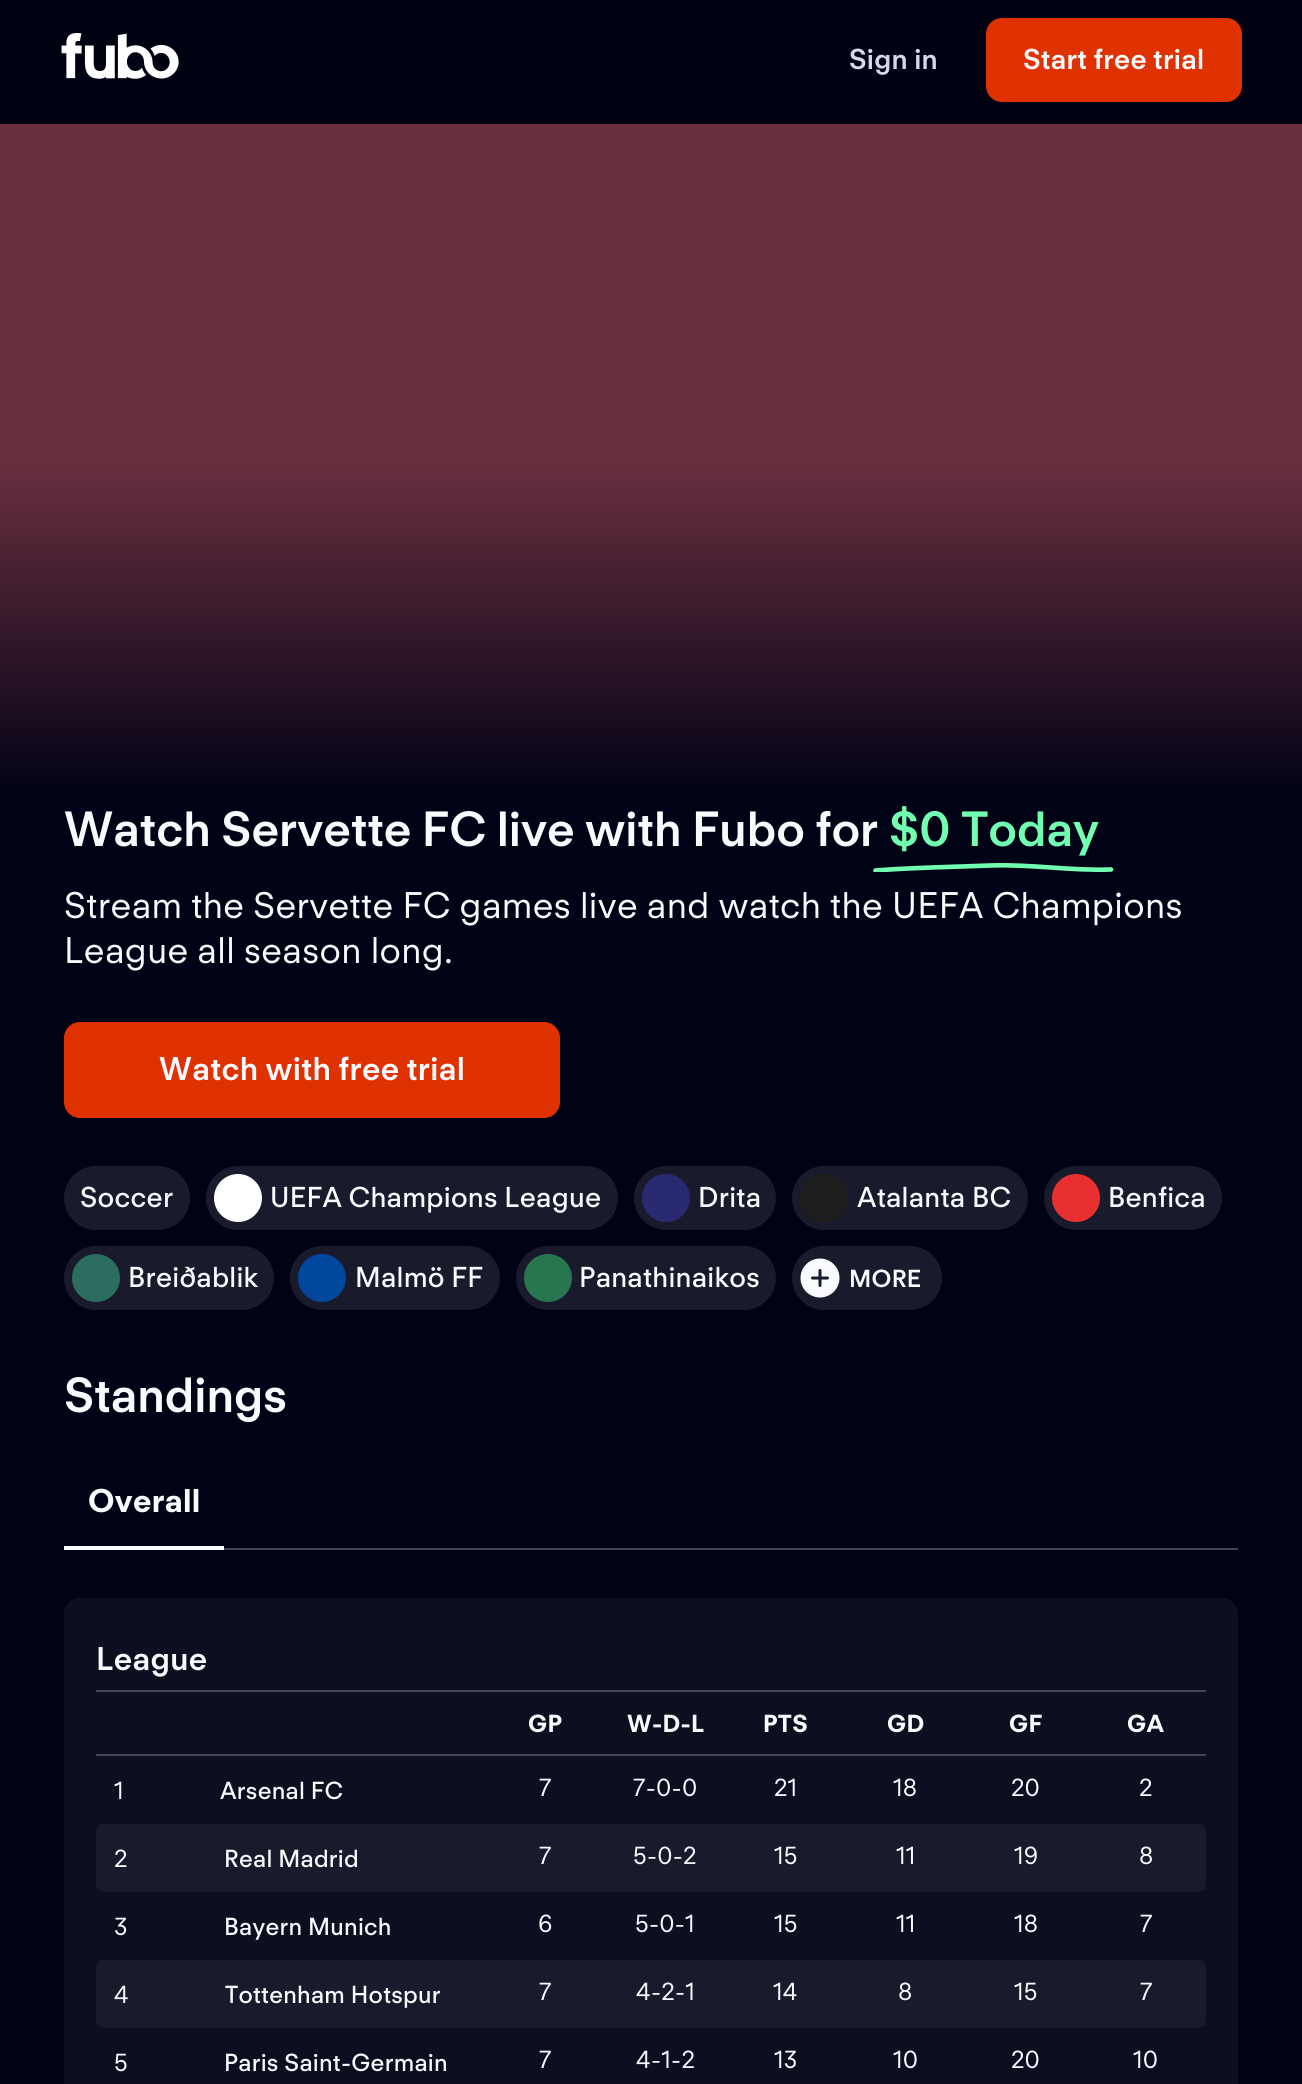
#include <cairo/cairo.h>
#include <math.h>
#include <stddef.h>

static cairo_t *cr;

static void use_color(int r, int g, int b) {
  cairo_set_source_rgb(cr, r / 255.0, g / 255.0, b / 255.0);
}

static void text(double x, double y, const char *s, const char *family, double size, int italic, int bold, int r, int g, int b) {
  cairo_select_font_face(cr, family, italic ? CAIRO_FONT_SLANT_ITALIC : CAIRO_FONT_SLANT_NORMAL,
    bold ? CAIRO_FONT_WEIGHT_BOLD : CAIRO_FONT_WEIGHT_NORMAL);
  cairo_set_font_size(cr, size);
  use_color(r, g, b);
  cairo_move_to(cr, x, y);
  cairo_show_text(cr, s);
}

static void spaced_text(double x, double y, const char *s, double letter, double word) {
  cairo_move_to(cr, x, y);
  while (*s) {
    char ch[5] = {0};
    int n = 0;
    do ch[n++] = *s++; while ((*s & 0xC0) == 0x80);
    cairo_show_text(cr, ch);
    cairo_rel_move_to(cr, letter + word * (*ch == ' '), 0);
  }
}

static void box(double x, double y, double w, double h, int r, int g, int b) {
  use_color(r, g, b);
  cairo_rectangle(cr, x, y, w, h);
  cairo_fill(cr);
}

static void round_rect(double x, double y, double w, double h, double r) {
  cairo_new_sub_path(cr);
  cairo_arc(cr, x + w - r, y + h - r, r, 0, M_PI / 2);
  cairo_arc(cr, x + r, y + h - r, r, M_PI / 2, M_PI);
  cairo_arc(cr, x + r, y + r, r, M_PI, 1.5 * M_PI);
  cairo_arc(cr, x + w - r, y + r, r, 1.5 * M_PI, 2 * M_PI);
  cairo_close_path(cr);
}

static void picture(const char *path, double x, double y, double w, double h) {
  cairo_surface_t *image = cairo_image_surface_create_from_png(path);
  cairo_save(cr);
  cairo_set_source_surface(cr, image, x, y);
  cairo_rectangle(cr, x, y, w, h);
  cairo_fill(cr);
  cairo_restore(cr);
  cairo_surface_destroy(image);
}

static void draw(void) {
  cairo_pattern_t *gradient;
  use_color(0, 2, 21);
  cairo_paint(cr);
  box(0, 0, 1302, 124, 0, 2, 18);
  picture("img_01.png", 61, 33, 118, 46);
  use_color(224, 49, 0);
  round_rect(986, 18, 256, 84, 16);
  cairo_fill(cr);
  gradient = cairo_pattern_create_linear(651, 800, 651, 124);
  cairo_pattern_add_color_stop_rgba(gradient, 0, 0, 0.008, 0.082, 1);
  cairo_pattern_add_color_stop_rgba(gradient, 0.51, 0.42, 0.188, 0.251, 1);
  cairo_set_source(cr, gradient);
  cairo_pattern_destroy(gradient);
  cairo_rectangle(cr, 0, 124, 1302, 668);
  cairo_fill(cr);
  cairo_save(cr);
  cairo_rectangle(cr, 872, 862, 242, 10);
  cairo_clip(cr);
  cairo_new_path(cr);
  cairo_move_to(cr, 1111, 869.5);
  cairo_curve_to(cr, 1071, 871, 1030.5, 864, 990, 865.5);
  cairo_curve_to(cr, 952.5, 867, 913, 867.5, 875.5, 870.5);
  use_color(114, 255, 178);
  cairo_set_line_width(cr, 4.6);
  cairo_set_line_cap(cr, CAIRO_LINE_CAP_ROUND);
  cairo_stroke(cr);
  cairo_restore(cr);
  use_color(224, 49, 0);
  round_rect(64, 1022, 496, 96, 16);
  cairo_fill(cr);
  use_color(25, 27, 44);
  round_rect(64, 1166, 126, 64, 32);
  cairo_fill(cr);
  round_rect(206, 1166, 412, 64, 32);
  cairo_fill(cr);
  use_color(255, 255, 255);
  cairo_arc(cr, 238, 1198, 24, 0, 2 * M_PI);
  cairo_fill(cr);
  use_color(25, 27, 44);
  round_rect(634, 1166, 142, 64, 32);
  cairo_fill(cr);
  use_color(42, 42, 114);
  cairo_arc(cr, 666, 1198, 24, 0, 2 * M_PI);
  cairo_fill(cr);
  use_color(25, 27, 44);
  round_rect(792, 1166, 236, 64, 32);
  cairo_fill(cr);
  use_color(30, 30, 30);
  cairo_arc(cr, 824, 1198, 24, 0, 2 * M_PI);
  cairo_fill(cr);
  use_color(25, 27, 44);
  round_rect(1044, 1166, 178, 64, 32);
  cairo_fill(cr);
  use_color(232, 48, 48);
  cairo_arc(cr, 1076, 1198, 24, 0, 2 * M_PI);
  cairo_fill(cr);
  use_color(25, 27, 44);
  round_rect(64, 1246, 210, 64, 32);
  cairo_fill(cr);
  use_color(43, 109, 95);
  cairo_arc(cr, 96, 1278, 24, 0, 2 * M_PI);
  cairo_fill(cr);
  use_color(25, 27, 44);
  round_rect(290, 1246, 210, 64, 32);
  cairo_fill(cr);
  use_color(0, 71, 157);
  cairo_arc(cr, 322, 1278, 24, 0, 2 * M_PI);
  cairo_fill(cr);
  use_color(25, 27, 44);
  round_rect(516, 1246, 260, 64, 32);
  cairo_fill(cr);
  use_color(40, 118, 80);
  cairo_arc(cr, 548, 1278, 24, 0, 2 * M_PI);
  cairo_fill(cr);
  use_color(25, 27, 44);
  round_rect(792, 1246, 150, 64, 32);
  cairo_fill(cr);
  picture("img_02.png", 800, 1258, 40, 40);
  box(64, 1546, 160, 4, 250, 251, 255);
  box(224, 1548, 1014, 2, 65, 68, 85);
  use_color(13, 15, 33);
  round_rect(64, 1598, 1174, 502, 16);
  cairo_fill(cr);
  box(96, 1690, 1110, 2, 65, 68, 85);
  box(96, 1754, 1110, 2, 65, 68, 85);
  use_color(25, 27, 44);
  cairo_new_path(cr);
  cairo_move_to(cr, 104, 1824);
  cairo_line_to(cr, 486, 1824);
  cairo_line_to(cr, 486, 1892);
  cairo_line_to(cr, 104, 1892);
  cairo_curve_to(cr, 99.5, 1892, 96, 1888.5, 96, 1884);
  cairo_line_to(cr, 96, 1832);
  cairo_curve_to(cr, 96, 1827.5, 99.5, 1824, 104, 1824);
  cairo_close_path(cr);
  cairo_fill(cr);
  box(486, 1824, 600, 68, 25, 27, 44);
  cairo_new_path(cr);
  cairo_move_to(cr, 1086, 1824);
  cairo_line_to(cr, 1198, 1824);
  cairo_curve_to(cr, 1202.5, 1824, 1206, 1827.5, 1206, 1832);
  cairo_line_to(cr, 1206, 1884);
  cairo_curve_to(cr, 1206, 1888.5, 1202.5, 1892, 1198, 1892);
  cairo_line_to(cr, 1086, 1892);
  cairo_close_path(cr);
  cairo_fill(cr);
  cairo_new_path(cr);
  cairo_move_to(cr, 104, 1960);
  cairo_line_to(cr, 486, 1960);
  cairo_line_to(cr, 486, 2028);
  cairo_line_to(cr, 104, 2028);
  cairo_curve_to(cr, 99.5, 2028, 96, 2024.5, 96, 2020);
  cairo_line_to(cr, 96, 1968);
  cairo_curve_to(cr, 96, 1963.5, 99.5, 1960, 104, 1960);
  cairo_close_path(cr);
  cairo_fill(cr);
  box(486, 1960, 600, 68, 25, 27, 44);
  cairo_new_path(cr);
  cairo_move_to(cr, 1086, 1960);
  cairo_line_to(cr, 1198, 1960);
  cairo_curve_to(cr, 1202.5, 1960, 1206, 1963.5, 1206, 1968);
  cairo_line_to(cr, 1206, 2020);
  cairo_curve_to(cr, 1206, 2024.5, 1202.5, 2028, 1198, 2028);
  cairo_line_to(cr, 1086, 2028);
  cairo_close_path(cr);
  cairo_fill(cr);
  cairo_select_font_face(cr, "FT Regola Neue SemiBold", CAIRO_FONT_SLANT_NORMAL, CAIRO_FONT_WEIGHT_NORMAL);
  cairo_set_font_size(cr, 28);
  use_color(213, 216, 231);
  spaced_text(849, 69, "Sign in", 0.25, 0);
  use_color(250, 251, 255);
  spaced_text(1023, 69, "Start free trial", 0.25, 0);
  text(64, 846, "Watch Servette FC live with Fubo for", "FT Regola Neue SemiBold", 48, 0, 0, 250, 251, 255);
  text(889, 846, "$0 Today", "FT Regola Neue SemiBold", 48, 0, 0, 114, 255, 178);
  cairo_select_font_face(cr, "FT Regola Neue", CAIRO_FONT_SLANT_NORMAL, CAIRO_FONT_WEIGHT_NORMAL);
  cairo_set_font_size(cr, 36);
  use_color(250, 251, 255);
  spaced_text(64, 918, "Stream the Servette FC games live and watch the UEFA Champions", 0.35, 0);
  spaced_text(64, 963, "League all season long.", 0.35, 0);
  cairo_select_font_face(cr, "FT Regola Neue SemiBold", CAIRO_FONT_SLANT_NORMAL, CAIRO_FONT_WEIGHT_NORMAL);
  cairo_set_font_size(cr, 32);
  spaced_text(159, 1080, "Watch with free trial", 0.3, 0);
  cairo_select_font_face(cr, "FT Regola Neue Medium", CAIRO_FONT_SLANT_NORMAL, CAIRO_FONT_WEIGHT_NORMAL);
  cairo_set_font_size(cr, 28);
  spaced_text(80, 1207, "Soccer", 0.25, 0);
  spaced_text(270, 1207, "UEFA Champions League", 0.25, 0);
  spaced_text(698, 1207, "Drita", 0.25, 0);
  spaced_text(857, 1207, "Atalanta BC", 0.25, 0);
  spaced_text(1108, 1207, "Benfica", 0.25, 0);
  spaced_text(128, 1287, "Breiðablik", 0.25, 0);
  spaced_text(355, 1287, "Malmö FF", 0.25, 0);
  spaced_text(579, 1287, "Panathinaikos", 0.25, 0);
  cairo_select_font_face(cr, "FT Regola Neue SemiBold", CAIRO_FONT_SLANT_NORMAL, CAIRO_FONT_WEIGHT_NORMAL);
  cairo_set_font_size(cr, 24);
  spaced_text(849, 1287, "MORE", 0.25, 0);
  text(64, 1412, "Standings", "FT Regola Neue SemiBold", 48, 0, 0, 250, 251, 255);
  cairo_select_font_face(cr, "FT Regola Neue", CAIRO_FONT_SLANT_NORMAL, CAIRO_FONT_WEIGHT_BOLD);
  cairo_set_font_size(cr, 32);
  spaced_text(88, 1512, "Overall", 0.3, 0);
  cairo_select_font_face(cr, "FT Regola Neue SemiBold", CAIRO_FONT_SLANT_NORMAL, CAIRO_FONT_WEIGHT_NORMAL);
  spaced_text(96, 1670, "League", 0.3, 0);
  cairo_select_font_face(cr, "FT Regola Neue", CAIRO_FONT_SLANT_NORMAL, CAIRO_FONT_WEIGHT_BOLD);
  cairo_set_font_size(cr, 24);
  spaced_text(528, 1732, "GP", 0.25, 0);
  spaced_text(627, 1732, "W-D-L", 0.25, 0);
  spaced_text(763, 1732, "PTS", 0.25, 0);
  spaced_text(887, 1732, "GD", 0.25, 0);
  spaced_text(1009, 1732, "GF", 0.25, 0);
  spaced_text(1127, 1732, "GA", 0.25, 0);
  cairo_select_font_face(cr, "FT Regola Neue", CAIRO_FONT_SLANT_NORMAL, CAIRO_FONT_WEIGHT_NORMAL);
  spaced_text(114, 1799, "1", 0.25, 0);
  cairo_select_font_face(cr, "FT Regola Neue Medium", CAIRO_FONT_SLANT_NORMAL, CAIRO_FONT_WEIGHT_NORMAL);
  spaced_text(220, 1799, "Arsenal FC", 0.25, 0);
  cairo_select_font_face(cr, "FT Regola Neue", CAIRO_FONT_SLANT_NORMAL, CAIRO_FONT_WEIGHT_NORMAL);
  spaced_text(539, 1796, "7", 0.25, 0);
  spaced_text(633, 1796, "7-0-0", 0.25, 0);
  spaced_text(774, 1796, "21", 0.25, 0);
  spaced_text(893, 1796, "18", 0.25, 0);
  spaced_text(1011, 1796, "20", 0.25, 0);
  spaced_text(1139, 1796, "2", 0.25, 0);
  spaced_text(114, 1867, "2", 0.25, 0);
  cairo_select_font_face(cr, "FT Regola Neue Medium", CAIRO_FONT_SLANT_NORMAL, CAIRO_FONT_WEIGHT_NORMAL);
  spaced_text(224, 1867, "Real Madrid", 0.25, 0);
  cairo_select_font_face(cr, "FT Regola Neue", CAIRO_FONT_SLANT_NORMAL, CAIRO_FONT_WEIGHT_NORMAL);
  spaced_text(539, 1864, "7", 0.25, 0);
  spaced_text(633, 1864, "5-0-2", 0.25, 0);
  spaced_text(774, 1864, "15", 0.25, 0);
  spaced_text(896, 1864, "11", 0.25, 0);
  spaced_text(1014, 1864, "19", 0.25, 0);
  spaced_text(1139, 1864, "8", 0.25, 0);
  spaced_text(114, 1935, "3", 0.25, 0);
  cairo_select_font_face(cr, "FT Regola Neue Medium", CAIRO_FONT_SLANT_NORMAL, CAIRO_FONT_WEIGHT_NORMAL);
  spaced_text(224, 1935, "Bayern Munich", 0.25, 0);
  cairo_select_font_face(cr, "FT Regola Neue", CAIRO_FONT_SLANT_NORMAL, CAIRO_FONT_WEIGHT_NORMAL);
  spaced_text(538, 1932, "6", 0.25, 0);
  spaced_text(635, 1932, "5-0-1", 0.25, 0);
  spaced_text(774, 1932, "15", 0.25, 0);
  spaced_text(896, 1932, "11", 0.25, 0);
  spaced_text(1014, 1932, "18", 0.25, 0);
  spaced_text(1140, 1932, "7", 0.25, 0);
  spaced_text(114, 2003, "4", 0.25, 0);
  cairo_select_font_face(cr, "FT Regola Neue Medium", CAIRO_FONT_SLANT_NORMAL, CAIRO_FONT_WEIGHT_NORMAL);
  spaced_text(225, 2003, "Tottenham Hotspur", 0.25, 0);
  cairo_select_font_face(cr, "FT Regola Neue", CAIRO_FONT_SLANT_NORMAL, CAIRO_FONT_WEIGHT_NORMAL);
  spaced_text(539, 2000, "7", 0.25, 0);
  spaced_text(636, 2000, "4-2-1", 0.25, 0);
  spaced_text(773, 2000, "14", 0.25, 0);
  spaced_text(898, 2000, "8", 0.25, 0);
  spaced_text(1014, 2000, "15", 0.25, 0);
  spaced_text(1140, 2000, "7", 0.25, 0);
  spaced_text(114, 2071, "5", 0.25, 0);
  cairo_select_font_face(cr, "FT Regola Neue Medium", CAIRO_FONT_SLANT_NORMAL, CAIRO_FONT_WEIGHT_NORMAL);
  spaced_text(224, 2071, "Paris Saint-Germain", 0.25, 0);
  cairo_select_font_face(cr, "FT Regola Neue", CAIRO_FONT_SLANT_NORMAL, CAIRO_FONT_WEIGHT_NORMAL);
  spaced_text(539, 2068, "7", 0.25, 0);
  spaced_text(636, 2068, "4-1-2", 0.25, 0);
  spaced_text(774, 2068, "13", 0.25, 0);
  spaced_text(893, 2068, "10", 0.25, 0);
  spaced_text(1011, 2068, "20", 0.25, 0);
  spaced_text(1133, 2068, "10", 0.25, 0);
}

int main(void) {
  cairo_surface_t *surface = cairo_image_surface_create(CAIRO_FORMAT_RGB24, 1302, 2084);
  cr = cairo_create(surface);
  cairo_font_options_t *options = cairo_font_options_create();
  cairo_font_options_set_hint_metrics(options, CAIRO_HINT_METRICS_OFF);
  cairo_font_options_set_hint_style(options, CAIRO_HINT_STYLE_NONE);
  cairo_set_font_options(cr, options);
  cairo_set_miter_limit(cr, 4);
  draw();
  cairo_surface_write_to_png(surface, "out.png");
  cairo_font_options_destroy(options);
  cairo_destroy(cr);
  cairo_surface_destroy(surface);
  return 0;
}
